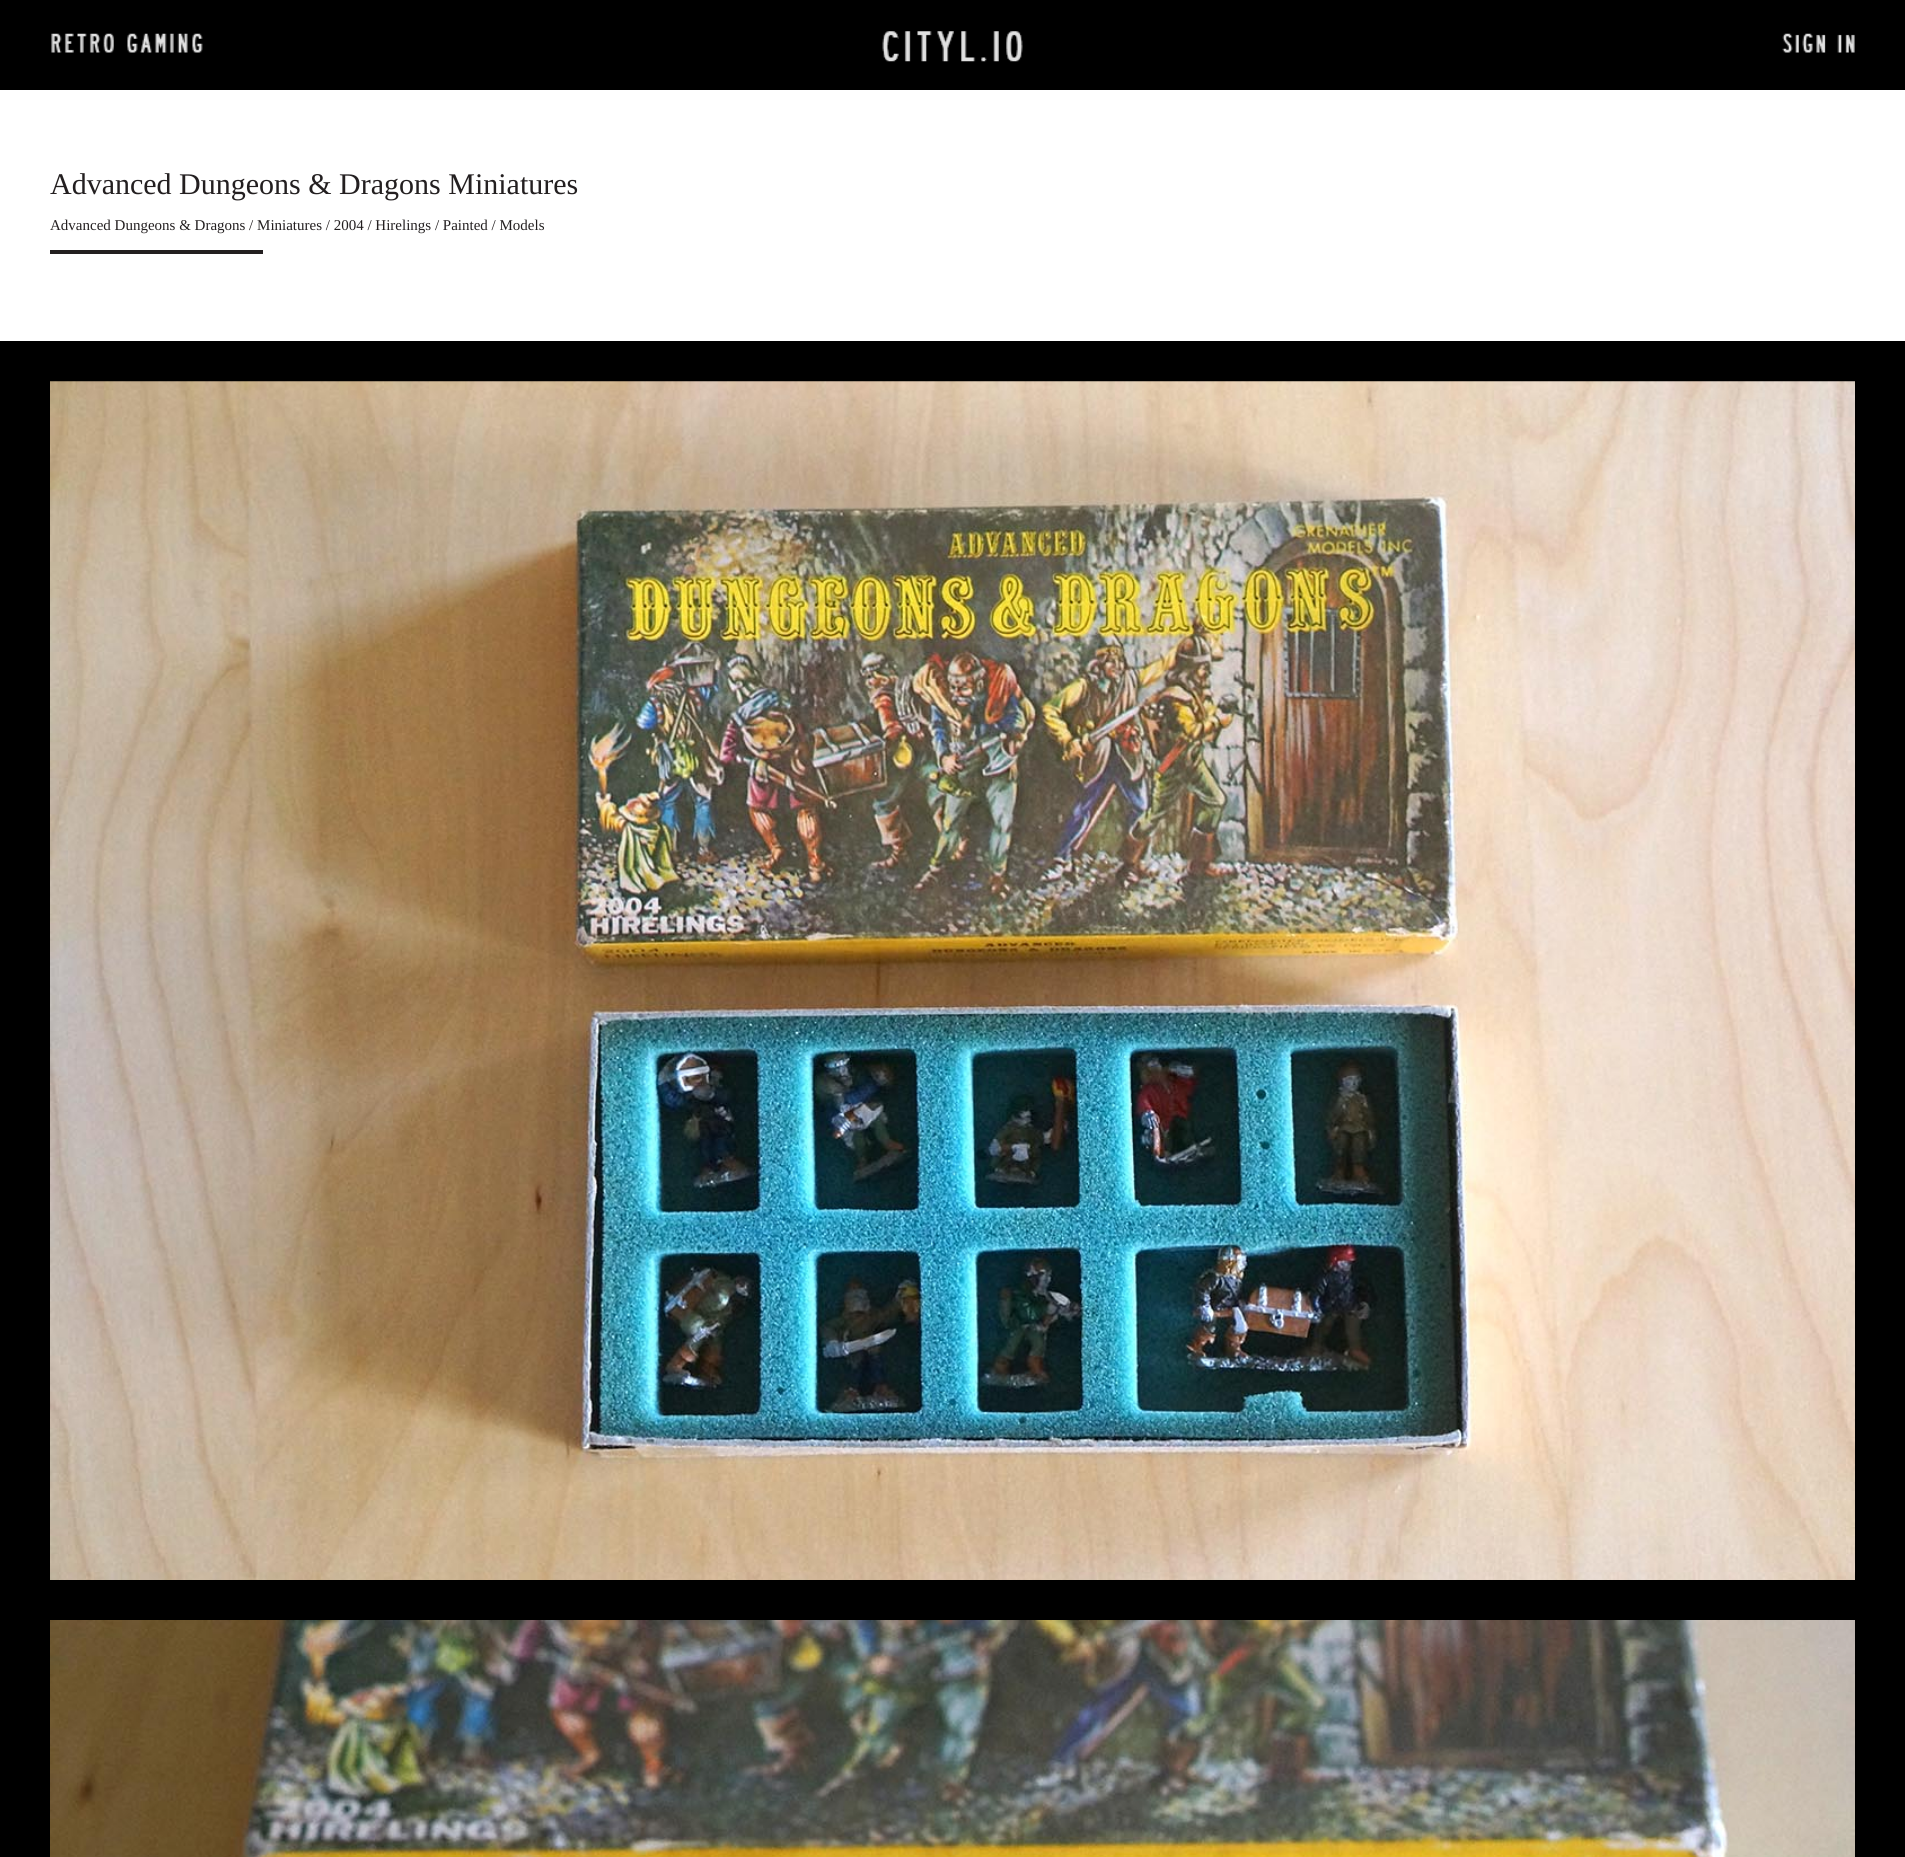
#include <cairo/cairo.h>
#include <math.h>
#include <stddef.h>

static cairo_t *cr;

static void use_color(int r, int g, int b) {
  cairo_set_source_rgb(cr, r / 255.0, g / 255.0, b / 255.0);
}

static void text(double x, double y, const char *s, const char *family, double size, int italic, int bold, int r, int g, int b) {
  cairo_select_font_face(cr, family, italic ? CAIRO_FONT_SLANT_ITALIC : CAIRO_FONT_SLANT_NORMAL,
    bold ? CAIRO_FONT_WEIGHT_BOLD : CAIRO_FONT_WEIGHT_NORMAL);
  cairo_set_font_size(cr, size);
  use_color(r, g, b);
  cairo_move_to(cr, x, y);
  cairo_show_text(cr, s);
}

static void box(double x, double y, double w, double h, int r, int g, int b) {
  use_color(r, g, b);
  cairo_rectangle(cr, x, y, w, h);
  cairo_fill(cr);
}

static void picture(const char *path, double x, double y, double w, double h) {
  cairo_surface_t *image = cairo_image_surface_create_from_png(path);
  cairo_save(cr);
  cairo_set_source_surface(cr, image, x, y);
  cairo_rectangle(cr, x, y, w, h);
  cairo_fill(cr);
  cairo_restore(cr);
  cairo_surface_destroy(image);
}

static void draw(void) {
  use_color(0, 0, 0);
  cairo_paint(cr);
  picture("img_01.png", 51, 33, 152, 20);
  picture("img_02.png", 882, 31, 141, 31);
  picture("img_03.png", 1782, 33, 73, 20);
  box(0, 90, 1905, 251, 255, 255, 255);
  box(50, 250, 213, 4, 35, 31, 32);
  picture("img_04.png", 50, 381, 1805, 1199);
  picture("img_05.png", 50, 1620, 1805, 237);
  text(50, 194, "Advanced Dungeons & Dragons Miniatures", "Liberation Serif", 30, 0, 0, 35, 31, 32);
  text(50, 230, "Advanced Dungeons & Dragons / Miniatures / 2004 / Hirelings / Painted / Models", "Liberation Serif", 15, 0, 0, 35, 31, 32);
}

int main(void) {
  cairo_surface_t *surface = cairo_image_surface_create(CAIRO_FORMAT_RGB24, 1905, 1857);
  cr = cairo_create(surface);
  cairo_font_options_t *options = cairo_font_options_create();
  cairo_font_options_set_hint_metrics(options, CAIRO_HINT_METRICS_OFF);
  cairo_font_options_set_hint_style(options, CAIRO_HINT_STYLE_NONE);
  cairo_set_font_options(cr, options);
  cairo_set_miter_limit(cr, 4);
  draw();
  cairo_surface_write_to_png(surface, "out.png");
  cairo_font_options_destroy(options);
  cairo_destroy(cr);
  cairo_surface_destroy(surface);
  return 0;
}
